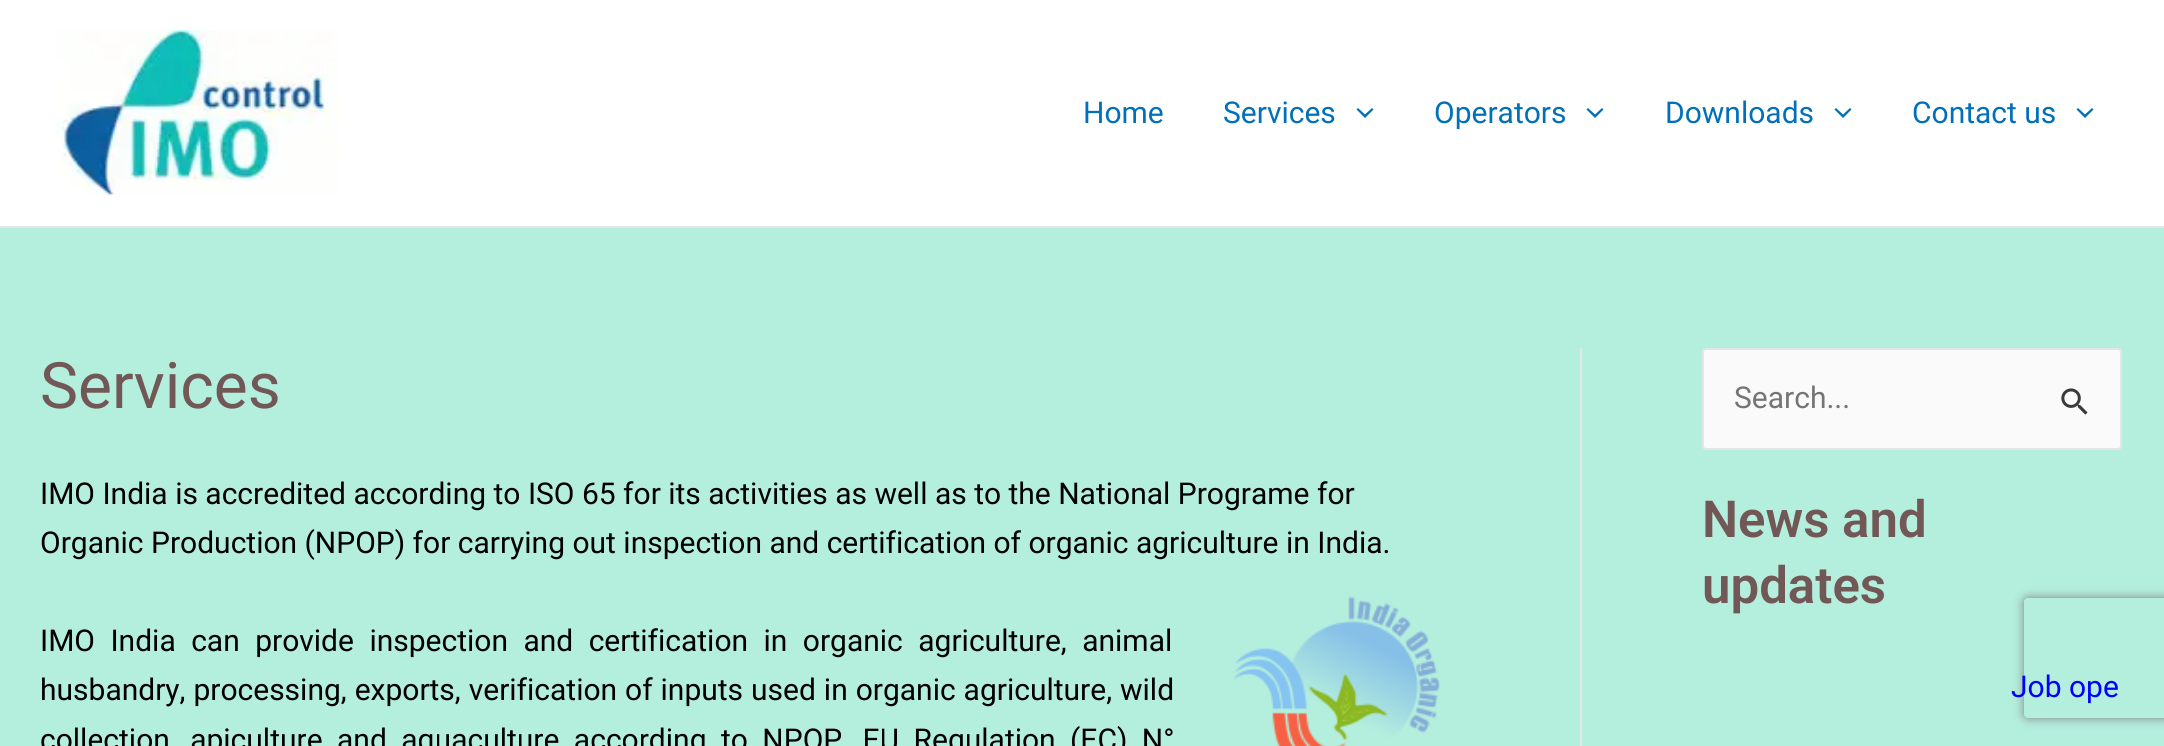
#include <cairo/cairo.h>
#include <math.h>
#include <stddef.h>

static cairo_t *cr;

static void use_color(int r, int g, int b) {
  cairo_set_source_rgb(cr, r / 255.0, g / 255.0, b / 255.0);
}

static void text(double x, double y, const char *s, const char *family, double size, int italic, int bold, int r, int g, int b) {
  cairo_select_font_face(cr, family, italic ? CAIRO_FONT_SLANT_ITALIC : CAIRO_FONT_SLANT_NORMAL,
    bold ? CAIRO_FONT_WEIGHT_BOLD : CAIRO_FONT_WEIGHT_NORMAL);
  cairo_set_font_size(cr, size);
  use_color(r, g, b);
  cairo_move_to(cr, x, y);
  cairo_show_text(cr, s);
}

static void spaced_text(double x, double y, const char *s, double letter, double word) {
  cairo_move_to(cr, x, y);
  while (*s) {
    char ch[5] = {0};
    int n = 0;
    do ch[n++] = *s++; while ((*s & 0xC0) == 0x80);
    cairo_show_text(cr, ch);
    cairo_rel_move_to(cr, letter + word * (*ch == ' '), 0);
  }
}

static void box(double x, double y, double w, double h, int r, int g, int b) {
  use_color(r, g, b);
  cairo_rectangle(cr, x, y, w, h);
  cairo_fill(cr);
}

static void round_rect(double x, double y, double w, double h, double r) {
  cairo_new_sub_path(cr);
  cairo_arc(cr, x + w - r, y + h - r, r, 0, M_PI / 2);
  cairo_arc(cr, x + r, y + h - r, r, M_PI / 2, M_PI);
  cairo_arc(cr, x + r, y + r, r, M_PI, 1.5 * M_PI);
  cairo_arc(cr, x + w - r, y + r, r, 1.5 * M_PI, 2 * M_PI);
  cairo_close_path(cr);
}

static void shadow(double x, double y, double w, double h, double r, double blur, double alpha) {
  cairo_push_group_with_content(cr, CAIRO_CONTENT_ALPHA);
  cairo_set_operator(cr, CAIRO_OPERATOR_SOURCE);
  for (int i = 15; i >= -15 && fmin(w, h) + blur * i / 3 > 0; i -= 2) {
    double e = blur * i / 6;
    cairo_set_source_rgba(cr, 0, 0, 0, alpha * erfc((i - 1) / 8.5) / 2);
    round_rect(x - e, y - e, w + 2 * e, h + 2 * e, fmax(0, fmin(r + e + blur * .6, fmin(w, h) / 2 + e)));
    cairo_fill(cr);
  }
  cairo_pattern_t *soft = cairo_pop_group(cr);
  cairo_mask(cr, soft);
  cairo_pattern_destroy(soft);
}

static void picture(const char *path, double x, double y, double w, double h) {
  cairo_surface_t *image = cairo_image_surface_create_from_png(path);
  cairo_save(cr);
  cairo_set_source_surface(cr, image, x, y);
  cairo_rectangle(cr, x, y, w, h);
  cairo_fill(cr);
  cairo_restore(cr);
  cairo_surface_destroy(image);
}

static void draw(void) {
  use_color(180, 238, 221);
  cairo_paint(cr);
  box(0, 0, 2164, 226, 255, 255, 255);
  box(0, 226, 2164, 2, 229, 229, 229);
  picture("img_01.png", 55, 30, 284, 166);
  use_color(1, 112, 185);
  cairo_new_path(cr);
  cairo_move_to(cr, 1356.5, 109.5);
  cairo_line_to(cr, 1365, 118);
  cairo_line_to(cr, 1373.5, 109.5);
  cairo_line_to(cr, 1372, 108);
  cairo_line_to(cr, 1365, 114.5);
  cairo_line_to(cr, 1358, 108);
  cairo_close_path(cr);
  cairo_fill(cr);
  cairo_new_path(cr);
  cairo_move_to(cr, 1586.5, 109.5);
  cairo_line_to(cr, 1595, 118);
  cairo_line_to(cr, 1603.5, 109.5);
  cairo_line_to(cr, 1602, 108);
  cairo_line_to(cr, 1595, 114.5);
  cairo_line_to(cr, 1588, 108);
  cairo_close_path(cr);
  cairo_fill(cr);
  cairo_new_path(cr);
  cairo_move_to(cr, 1834.5, 109.5);
  cairo_line_to(cr, 1843, 118);
  cairo_line_to(cr, 1851.5, 109.5);
  cairo_line_to(cr, 1850, 108);
  cairo_line_to(cr, 1843, 114.5);
  cairo_line_to(cr, 1836, 108);
  cairo_close_path(cr);
  cairo_fill(cr);
  cairo_new_path(cr);
  cairo_move_to(cr, 2076.5, 109.5);
  cairo_line_to(cr, 2085, 118);
  cairo_line_to(cr, 2093.5, 109.5);
  cairo_line_to(cr, 2092, 108);
  cairo_line_to(cr, 2085, 114.5);
  cairo_line_to(cr, 2078, 108);
  cairo_close_path(cr);
  cairo_fill(cr);
  box(1580, 348, 2, 398, 229, 229, 229);
  picture("img_02.png", 1234, 596, 206, 150);
  use_color(250, 250, 250);
  round_rect(1703, 349, 418, 100, 3);
  cairo_fill_preserve(cr);
  use_color(229, 229, 229);
  cairo_stroke(cr);
  picture("img_03.png", 2061, 388, 27, 27);
  cairo_save(cr);
  cairo_set_fill_rule(cr, CAIRO_FILL_RULE_EVEN_ODD);
  cairo_new_path(cr);
  cairo_move_to(cr, 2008, 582);
  cairo_line_to(cr, 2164, 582);
  cairo_line_to(cr, 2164, 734);
  cairo_line_to(cr, 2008, 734);
  cairo_close_path(cr);
  cairo_move_to(cr, 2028, 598);
  cairo_line_to(cr, 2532, 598);
  cairo_curve_to(cr, 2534, 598, 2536, 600, 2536, 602);
  cairo_line_to(cr, 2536, 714);
  cairo_curve_to(cr, 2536, 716, 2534, 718, 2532, 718);
  cairo_line_to(cr, 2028, 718);
  cairo_curve_to(cr, 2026, 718, 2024, 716, 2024, 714);
  cairo_line_to(cr, 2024, 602);
  cairo_curve_to(cr, 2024, 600, 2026, 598, 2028, 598);
  cairo_close_path(cr);
  cairo_clip(cr);
  use_color(128, 128, 128);
  shadow(2024, 598, 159, 120, 4, 5, 1);
  cairo_restore(cr);
  text(1083, 123, "Home", "Roboto", 30, 0, 0, 1, 112, 185);
  text(1223, 123, "Services", "Roboto", 30, 0, 0, 1, 112, 185);
  text(1434, 123, "Operators", "Roboto", 30, 0, 0, 1, 112, 185);
  text(1665, 123, "Downloads", "Roboto", 30, 0, 0, 1, 112, 185);
  text(1912, 123, "Contact us", "Roboto", 30, 0, 0, 1, 112, 185);
  text(40, 408, "Services", "Roboto", 64, 0, 0, 114, 87, 87);
  text(40, 504, "IMO India is accredited according to ISO 65 for its activities as well as to the National Programe for", "Roboto", 30, 0, 0, 0, 0, 0);
  text(40, 553, "Organic Production (NPOP) for carrying out inspection and certification of organic agriculture in India.", "Roboto", 30, 0, 0, 0, 0, 0);
  spaced_text(40, 651, "IMO India can provide inspection and certification in organic agriculture, animal", 0, 8);
  spaced_text(40, 700, "husbandry, processing, exports, verification of inputs used in organic agriculture, wild", 0, 0.5);
  spaced_text(40, 750, "collection, apiculture and aquaculture according to NPOP, EU Regulation (EC) N°", 0, 7);
  text(1734, 408, "Search...", "Roboto", 30, 0, 0, 117, 117, 117);
  text(1702, 537, "News and", "Roboto SemiBold", 51, 0, 0, 114, 87, 87);
  text(1702, 603, "updates", "Roboto SemiBold", 51, 0, 0, 114, 87, 87);
  text(2011, 697, "Job ope", "Roboto", 30, 0, 0, 0, 0, 255);
}

int main(void) {
  cairo_surface_t *surface = cairo_image_surface_create(CAIRO_FORMAT_RGB24, 2164, 746);
  cr = cairo_create(surface);
  cairo_font_options_t *options = cairo_font_options_create();
  cairo_font_options_set_hint_metrics(options, CAIRO_HINT_METRICS_OFF);
  cairo_font_options_set_hint_style(options, CAIRO_HINT_STYLE_NONE);
  cairo_set_font_options(cr, options);
  cairo_set_miter_limit(cr, 4);
  draw();
  cairo_surface_write_to_png(surface, "out.png");
  cairo_font_options_destroy(options);
  cairo_destroy(cr);
  cairo_surface_destroy(surface);
  return 0;
}
